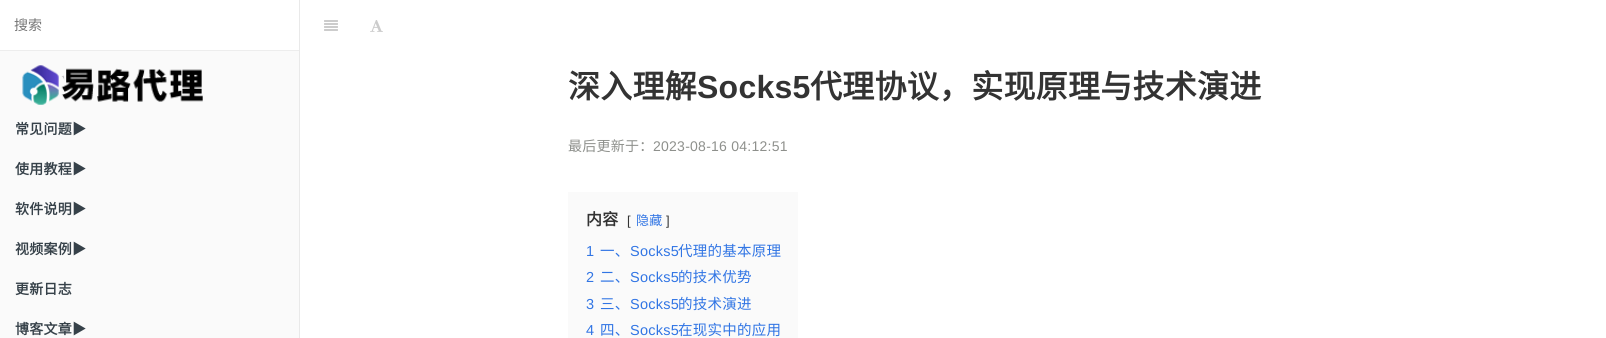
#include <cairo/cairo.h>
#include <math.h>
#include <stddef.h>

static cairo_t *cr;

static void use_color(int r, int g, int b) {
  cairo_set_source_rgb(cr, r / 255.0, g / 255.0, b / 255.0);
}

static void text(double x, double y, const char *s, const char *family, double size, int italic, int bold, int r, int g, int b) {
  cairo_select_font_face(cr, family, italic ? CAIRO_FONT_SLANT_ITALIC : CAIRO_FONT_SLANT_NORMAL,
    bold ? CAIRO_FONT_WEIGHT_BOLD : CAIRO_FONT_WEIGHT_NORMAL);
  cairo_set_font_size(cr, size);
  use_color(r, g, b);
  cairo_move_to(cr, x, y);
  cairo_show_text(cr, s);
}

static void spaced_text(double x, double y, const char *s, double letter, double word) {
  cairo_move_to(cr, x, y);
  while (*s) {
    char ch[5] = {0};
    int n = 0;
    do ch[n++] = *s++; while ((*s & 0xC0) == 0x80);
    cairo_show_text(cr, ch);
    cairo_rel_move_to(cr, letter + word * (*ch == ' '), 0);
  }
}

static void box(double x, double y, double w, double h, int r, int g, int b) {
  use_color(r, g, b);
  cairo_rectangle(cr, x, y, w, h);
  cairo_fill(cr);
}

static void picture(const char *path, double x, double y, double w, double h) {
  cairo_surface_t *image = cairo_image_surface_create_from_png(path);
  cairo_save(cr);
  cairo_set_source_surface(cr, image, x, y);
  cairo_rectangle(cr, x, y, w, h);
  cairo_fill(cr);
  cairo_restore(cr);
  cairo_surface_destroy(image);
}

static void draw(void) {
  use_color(255, 255, 255);
  cairo_paint(cr);
  box(0, 51, 299, 287, 250, 250, 250);
  box(299, 0, 1, 338, 233, 233, 233);
  box(0, 50, 299, 1, 237, 237, 237);
  picture("img_01.png", 22, 65, 181, 40);
  picture("img_02.png", 324, 20, 14, 11);
  picture("img_03.png", 370, 20, 13, 12);
  box(568, 192, 230, 146, 250, 250, 250);
  text(14, 30, "搜索", "Noto Sans CJK SC", 14, 0, 0, 117, 117, 117);
  cairo_select_font_face(cr, "Noto Sans CJK SC", CAIRO_FONT_SLANT_NORMAL, CAIRO_FONT_WEIGHT_BOLD);
  use_color(54, 65, 73);
  spaced_text(15, 134, "常见问题▶", 0.25, 0);
  spaced_text(15, 174, "使用教程▶", 0.25, 0);
  spaced_text(15, 214, "软件说明▶", 0.25, 0);
  spaced_text(15, 254, "视频案例▶", 0.25, 0);
  spaced_text(15, 294, "更新日志", 0.25, 0);
  spaced_text(15, 334, "博客文章▶", 0.25, 0);
  cairo_set_font_size(cr, 32);
  use_color(51, 51, 51);
  spaced_text(568, 98, "深入理解", 0.25, 0);
  cairo_select_font_face(cr, "Liberation Sans", CAIRO_FONT_SLANT_NORMAL, CAIRO_FONT_WEIGHT_BOLD);
  spaced_text(697, 98, "Socks5", 0.25, 0);
  cairo_select_font_face(cr, "Noto Sans CJK SC", CAIRO_FONT_SLANT_NORMAL, CAIRO_FONT_WEIGHT_BOLD);
  spaced_text(810, 98, "代理协议，实现原理与技术演进", 0.25, 0);
  cairo_select_font_face(cr, "Noto Sans CJK SC", CAIRO_FONT_SLANT_NORMAL, CAIRO_FONT_WEIGHT_NORMAL);
  cairo_set_font_size(cr, 14);
  use_color(142, 144, 140);
  spaced_text(568, 151, "最后更新于：", 0.25, 0);
  cairo_select_font_face(cr, "Liberation Sans", CAIRO_FONT_SLANT_NORMAL, CAIRO_FONT_WEIGHT_NORMAL);
  spaced_text(653, 151, "2023-08-16 04:12:51", 0.25, 0);
  cairo_select_font_face(cr, "Noto Sans CJK SC", CAIRO_FONT_SLANT_NORMAL, CAIRO_FONT_WEIGHT_BOLD);
  cairo_set_font_size(cr, 16);
  use_color(51, 51, 51);
  spaced_text(586, 225, "内容", 0.25, 0);
  cairo_select_font_face(cr, "Liberation Sans", CAIRO_FONT_SLANT_NORMAL, CAIRO_FONT_WEIGHT_NORMAL);
  cairo_set_font_size(cr, 13);
  spaced_text(627, 225, "[", 0.25, 0);
  cairo_select_font_face(cr, "Noto Sans CJK SC", CAIRO_FONT_SLANT_NORMAL, CAIRO_FONT_WEIGHT_NORMAL);
  use_color(49, 117, 228);
  spaced_text(636, 225, "隐藏", 0.25, 0);
  cairo_select_font_face(cr, "Liberation Sans", CAIRO_FONT_SLANT_NORMAL, CAIRO_FONT_WEIGHT_NORMAL);
  use_color(51, 51, 51);
  spaced_text(666, 225, "]", 0.25, 0);
  cairo_set_font_size(cr, 14.5);
  use_color(49, 117, 228);
  spaced_text(586, 256, "1", 0.25, 0);
  cairo_select_font_face(cr, "Noto Sans CJK SC", CAIRO_FONT_SLANT_NORMAL, CAIRO_FONT_WEIGHT_NORMAL);
  spaced_text(600, 256, "一、", 0.25, 0);
  cairo_select_font_face(cr, "Liberation Sans", CAIRO_FONT_SLANT_NORMAL, CAIRO_FONT_WEIGHT_NORMAL);
  spaced_text(630, 256, "Socks5", 0.25, 0);
  cairo_select_font_face(cr, "Noto Sans CJK SC", CAIRO_FONT_SLANT_NORMAL, CAIRO_FONT_WEIGHT_NORMAL);
  spaced_text(678, 256, "代理的基本原理", 0.25, 0);
  cairo_select_font_face(cr, "Liberation Sans", CAIRO_FONT_SLANT_NORMAL, CAIRO_FONT_WEIGHT_NORMAL);
  spaced_text(586, 282, "2", 0.25, 0);
  cairo_select_font_face(cr, "Noto Sans CJK SC", CAIRO_FONT_SLANT_NORMAL, CAIRO_FONT_WEIGHT_NORMAL);
  spaced_text(600, 282, "二、", 0.25, 0);
  cairo_select_font_face(cr, "Liberation Sans", CAIRO_FONT_SLANT_NORMAL, CAIRO_FONT_WEIGHT_NORMAL);
  spaced_text(630, 282, "Socks5", 0.25, 0);
  cairo_select_font_face(cr, "Noto Sans CJK SC", CAIRO_FONT_SLANT_NORMAL, CAIRO_FONT_WEIGHT_NORMAL);
  spaced_text(678, 282, "的技术优势", 0.25, 0);
  cairo_select_font_face(cr, "Liberation Sans", CAIRO_FONT_SLANT_NORMAL, CAIRO_FONT_WEIGHT_NORMAL);
  spaced_text(586, 309, "3", 0.25, 0);
  cairo_select_font_face(cr, "Noto Sans CJK SC", CAIRO_FONT_SLANT_NORMAL, CAIRO_FONT_WEIGHT_NORMAL);
  spaced_text(600, 309, "三、", 0.25, 0);
  cairo_select_font_face(cr, "Liberation Sans", CAIRO_FONT_SLANT_NORMAL, CAIRO_FONT_WEIGHT_NORMAL);
  spaced_text(630, 309, "Socks5", 0.25, 0);
  cairo_select_font_face(cr, "Noto Sans CJK SC", CAIRO_FONT_SLANT_NORMAL, CAIRO_FONT_WEIGHT_NORMAL);
  spaced_text(678, 309, "的技术演进", 0.25, 0);
  cairo_select_font_face(cr, "Liberation Sans", CAIRO_FONT_SLANT_NORMAL, CAIRO_FONT_WEIGHT_NORMAL);
  spaced_text(586, 335, "4", 0.25, 0);
  cairo_select_font_face(cr, "Noto Sans CJK SC", CAIRO_FONT_SLANT_NORMAL, CAIRO_FONT_WEIGHT_NORMAL);
  spaced_text(600, 335, "四、", 0.25, 0);
  cairo_select_font_face(cr, "Liberation Sans", CAIRO_FONT_SLANT_NORMAL, CAIRO_FONT_WEIGHT_NORMAL);
  spaced_text(630, 335, "Socks5", 0.25, 0);
  cairo_select_font_face(cr, "Noto Sans CJK SC", CAIRO_FONT_SLANT_NORMAL, CAIRO_FONT_WEIGHT_NORMAL);
  spaced_text(678, 335, "在现实中的应用", 0.25, 0);
}

int main(void) {
  cairo_surface_t *surface = cairo_image_surface_create(CAIRO_FORMAT_RGB24, 1606, 338);
  cr = cairo_create(surface);
  cairo_font_options_t *options = cairo_font_options_create();
  cairo_font_options_set_hint_metrics(options, CAIRO_HINT_METRICS_OFF);
  cairo_font_options_set_hint_style(options, CAIRO_HINT_STYLE_NONE);
  cairo_set_font_options(cr, options);
  cairo_set_miter_limit(cr, 4);
  draw();
  cairo_surface_write_to_png(surface, "out.png");
  cairo_font_options_destroy(options);
  cairo_destroy(cr);
  cairo_surface_destroy(surface);
  return 0;
}
